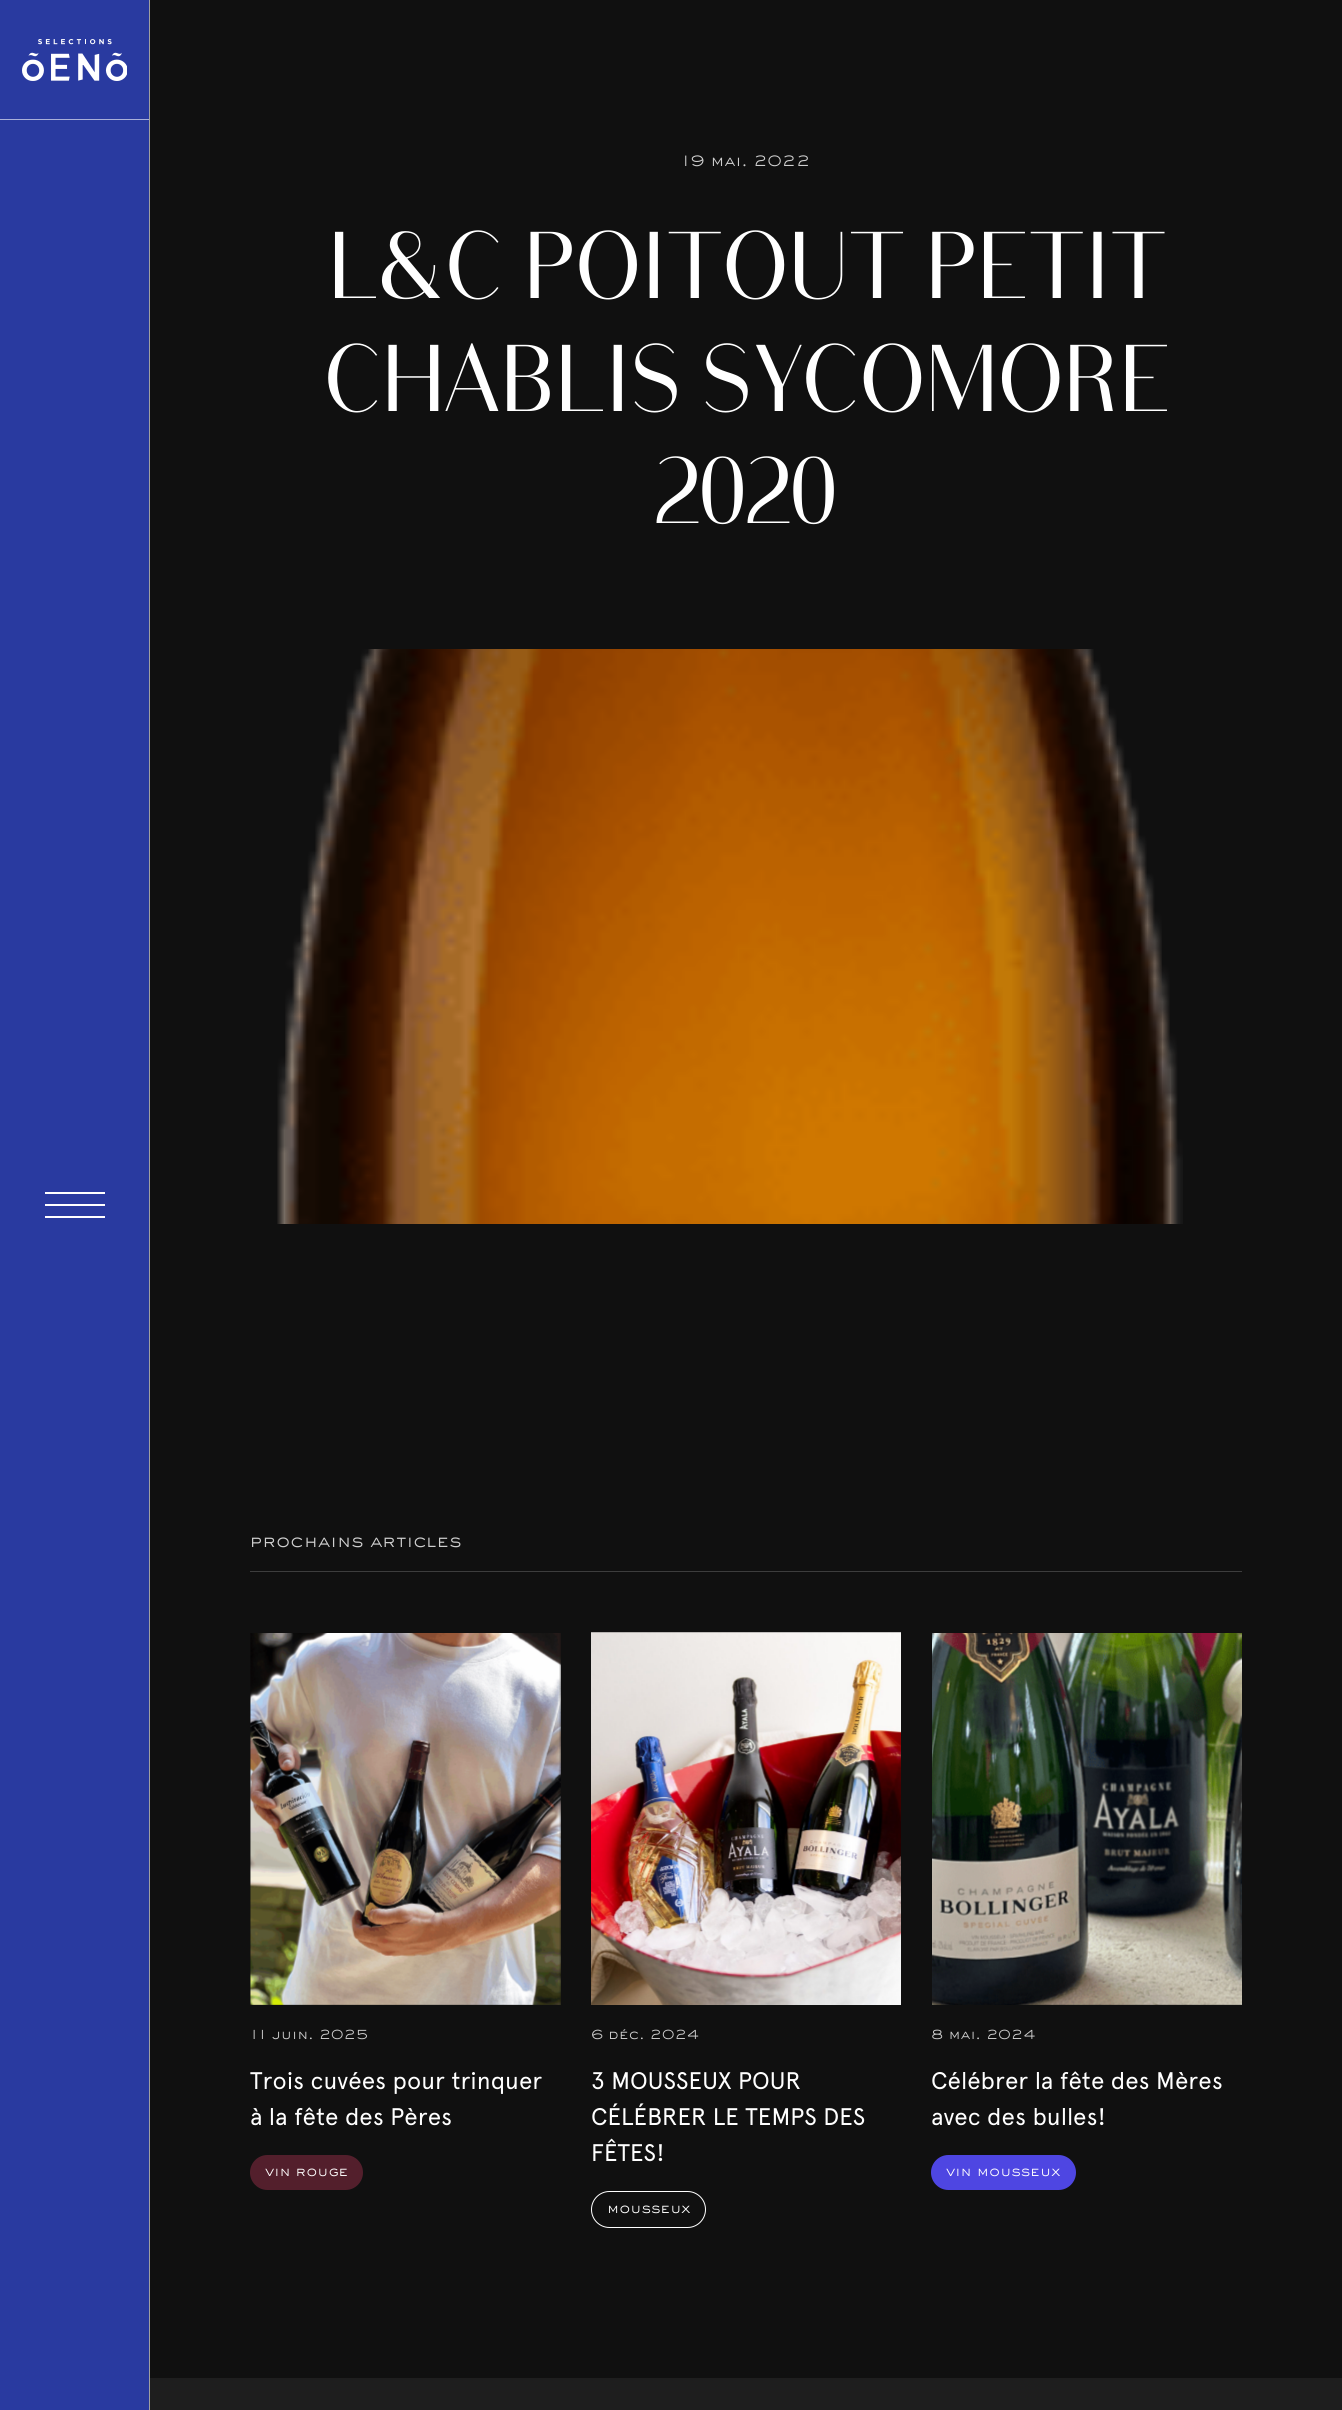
#include <cairo/cairo.h>
#include <math.h>
#include <stddef.h>

static cairo_t *cr;

static void use_color(int r, int g, int b) {
  cairo_set_source_rgb(cr, r / 255.0, g / 255.0, b / 255.0);
}

static void text(double x, double y, const char *s, const char *family, double size, int italic, int bold, int r, int g, int b) {
  cairo_select_font_face(cr, family, italic ? CAIRO_FONT_SLANT_ITALIC : CAIRO_FONT_SLANT_NORMAL,
    bold ? CAIRO_FONT_WEIGHT_BOLD : CAIRO_FONT_WEIGHT_NORMAL);
  cairo_set_font_size(cr, size);
  use_color(r, g, b);
  cairo_move_to(cr, x, y);
  cairo_show_text(cr, s);
}

static void box(double x, double y, double w, double h, int r, int g, int b) {
  use_color(r, g, b);
  cairo_rectangle(cr, x, y, w, h);
  cairo_fill(cr);
}

static void round_rect(double x, double y, double w, double h, double r) {
  cairo_new_sub_path(cr);
  cairo_arc(cr, x + w - r, y + h - r, r, 0, M_PI / 2);
  cairo_arc(cr, x + r, y + h - r, r, M_PI / 2, M_PI);
  cairo_arc(cr, x + r, y + r, r, M_PI, 1.5 * M_PI);
  cairo_arc(cr, x + w - r, y + r, r, 1.5 * M_PI, 2 * M_PI);
  cairo_close_path(cr);
}

static void picture(const char *path, double x, double y, double w, double h) {
  cairo_surface_t *image = cairo_image_surface_create_from_png(path);
  cairo_save(cr);
  cairo_set_source_surface(cr, image, x, y);
  cairo_rectangle(cr, x, y, w, h);
  cairo_fill(cr);
  cairo_restore(cr);
  cairo_surface_destroy(image);
}

static void draw(void) {
  use_color(16, 16, 16);
  cairo_paint(cr);
  box(149, 0, 1, 2410, 159, 159, 159);
  box(0, 0, 149, 2410, 41, 58, 160);
  box(0, 119, 149, 1, 169, 176, 217);
  picture("img_01.png", 22, 39, 105, 42);
  box(45, 1192, 60, 2, 255, 255, 255);
  box(45, 1204, 60, 2, 255, 255, 255);
  box(45, 1216, 60, 2, 255, 255, 255);
  picture("img_02.png", 277, 649, 906, 575);
  box(250, 1571, 992, 1, 61, 61, 61);
  picture("img_03.png", 250, 1633, 311, 372);
  use_color(83, 31, 44);
  round_rect(250, 2155, 113, 35, 17.5);
  cairo_fill(cr);
  picture("img_04.png", 591, 1632, 310, 373);
  round_rect(591.5, 2191.5, 114, 36, 18);
  use_color(255, 255, 255);
  cairo_set_line_width(cr, 1);
  cairo_stroke(cr);
  picture("img_05.png", 932, 1633, 310, 372);
  use_color(78, 70, 226);
  round_rect(931, 2155, 145, 35, 17.5);
  cairo_fill(cr);
  box(150, 2378, 1192, 32, 30, 30, 30);
  text(681, 166, "19 mai. 2022", "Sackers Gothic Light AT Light", 16, 0, 0, 207, 207, 207);
  text(327, 298, "L&C POITOUT PETIT", "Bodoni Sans", 94, 0, 0, 255, 255, 255);
  text(323, 411, "CHABLIS SYCOMORE", "Bodoni Sans", 94, 0, 0, 255, 255, 255);
  text(655, 523, "2020", "Bodoni Sans", 94, 0, 0, 255, 255, 255);
  text(250, 1547, "prochains articles", "Sackers Gothic Light AT Light", 18, 0, 0, 207, 207, 207);
  text(250, 2039, "11 juin. 2025", "Sackers Gothic Light AT Light", 14, 0, 0, 207, 207, 207);
  text(250, 2089, "Trois cuvées pour trinquer", "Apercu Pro", 24, 0, 0, 255, 255, 255);
  text(250, 2125, "à la fête des Pères", "Apercu Pro", 24, 0, 0, 255, 255, 255);
  text(265, 2176, "vin rouge", "Sackers Gothic Light AT Light", 14, 0, 0, 255, 255, 255);
  text(591, 2039, "6 déc. 2024", "Sackers Gothic Light AT Light", 14, 0, 0, 207, 207, 207);
  text(591, 2089, "3 MOUSSEUX POUR", "Apercu Pro", 24, 0, 0, 255, 255, 255);
  text(591, 2125, "CÉLÉBRER LE TEMPS DES", "Apercu Pro", 24, 0, 0, 255, 255, 255);
  text(591, 2161, "FÊTES!", "Apercu Pro", 24, 0, 0, 255, 255, 255);
  text(607, 2213, "mousseux", "Sackers Gothic Light AT Light", 14, 0, 0, 255, 255, 255);
  text(931, 2039, "8 mai. 2024", "Sackers Gothic Light AT Light", 14, 0, 0, 207, 207, 207);
  text(931, 2089, "Célébrer la fête des Mères", "Apercu Pro", 24, 0, 0, 255, 255, 255);
  text(931, 2125, "avec des bulles!", "Apercu Pro", 24, 0, 0, 255, 255, 255);
  text(946, 2176, "vin mousseux", "Sackers Gothic Light AT Light", 14, 0, 0, 255, 255, 255);
}

int main(void) {
  cairo_surface_t *surface = cairo_image_surface_create(CAIRO_FORMAT_RGB24, 1342, 2410);
  cr = cairo_create(surface);
  cairo_font_options_t *options = cairo_font_options_create();
  cairo_font_options_set_hint_metrics(options, CAIRO_HINT_METRICS_OFF);
  cairo_font_options_set_hint_style(options, CAIRO_HINT_STYLE_NONE);
  cairo_set_font_options(cr, options);
  cairo_set_miter_limit(cr, 4);
  draw();
  cairo_surface_write_to_png(surface, "out.png");
  cairo_font_options_destroy(options);
  cairo_destroy(cr);
  cairo_surface_destroy(surface);
  return 0;
}
